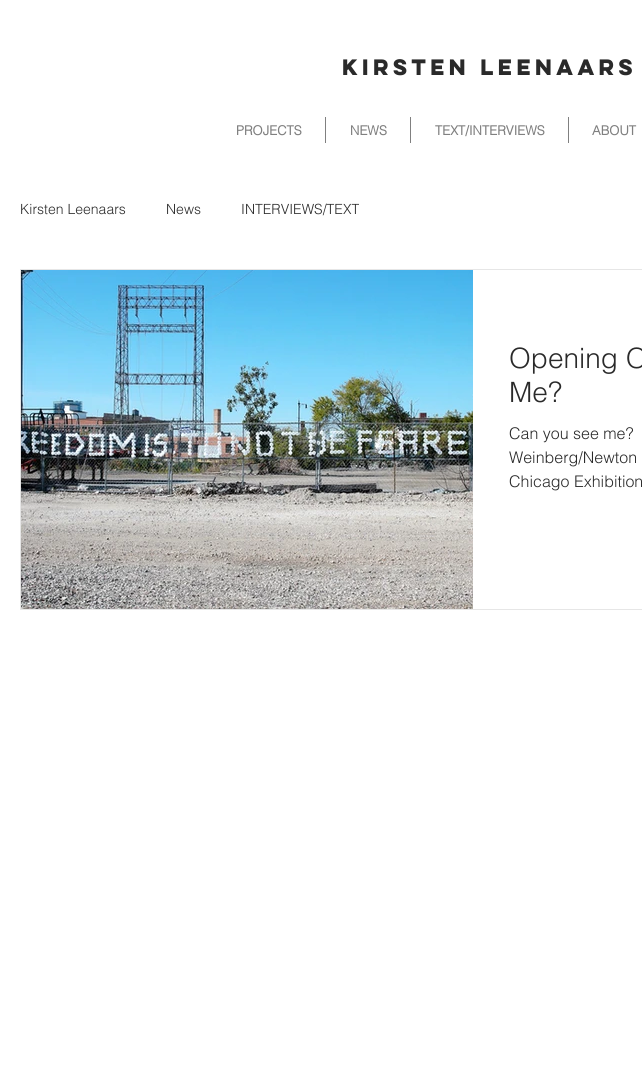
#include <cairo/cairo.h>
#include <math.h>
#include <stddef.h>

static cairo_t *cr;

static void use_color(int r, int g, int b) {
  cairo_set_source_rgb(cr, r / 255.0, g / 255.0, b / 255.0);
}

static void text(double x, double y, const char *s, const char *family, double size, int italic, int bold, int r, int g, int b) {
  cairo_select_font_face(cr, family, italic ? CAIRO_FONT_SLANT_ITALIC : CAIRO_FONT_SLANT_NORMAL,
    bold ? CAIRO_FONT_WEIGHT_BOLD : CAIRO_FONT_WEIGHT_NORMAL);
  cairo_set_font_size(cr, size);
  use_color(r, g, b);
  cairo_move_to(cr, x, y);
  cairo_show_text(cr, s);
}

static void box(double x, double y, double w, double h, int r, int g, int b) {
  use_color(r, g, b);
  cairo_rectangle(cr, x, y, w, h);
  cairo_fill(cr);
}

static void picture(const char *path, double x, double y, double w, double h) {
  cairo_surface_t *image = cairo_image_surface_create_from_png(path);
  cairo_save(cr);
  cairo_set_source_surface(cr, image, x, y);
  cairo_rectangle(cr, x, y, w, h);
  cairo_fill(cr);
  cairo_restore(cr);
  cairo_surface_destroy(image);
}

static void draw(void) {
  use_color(255, 255, 255);
  cairo_paint(cr);
  box(325, 117, 1, 26, 128, 128, 128);
  box(410, 117, 1, 26, 128, 128, 128);
  box(568, 117, 1, 26, 128, 128, 128);
  cairo_rectangle(cr, 20.5, 269.5, 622, 340);
  use_color(230, 230, 230);
  cairo_set_line_width(cr, 1);
  cairo_stroke(cr);
  picture("img_01.png", 21, 270, 452, 339);
  text(342, 75, "KIRSTEN LEENAARS", "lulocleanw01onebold", 20, 0, 1, 42, 42, 42);
  text(236, 135, "PROJECTS", "helvetica", 13, 0, 1, 128, 128, 128);
  text(350, 135, "NEWS", "helvetica", 13, 0, 1, 128, 128, 128);
  text(435, 135, "TEXT/INTERVIEWS", "helvetica", 13, 0, 1, 128, 128, 128);
  text(592, 135, "ABOUT", "helvetica", 13, 0, 1, 128, 128, 128);
  text(20, 214, "Kirsten Leenaars", "helvetica Light", 14, 0, 0, 42, 42, 42);
  text(166, 214, "News", "helvetica Light", 14, 0, 0, 42, 42, 42);
  text(241, 214, "INTERVIEWS/TEXT", "helvetica Light", 14, 0, 0, 42, 42, 42);
  text(509, 368, "Opening O", "helvetica Light", 28, 0, 0, 42, 42, 42);
  text(509, 402, "Me?", "helvetica Light", 28, 0, 0, 42, 42, 42);
  text(509, 439, "Can you see me?", "helvetica Light", 16, 0, 0, 42, 42, 42);
  text(509, 463, "Weinberg/Newton", "helvetica Light", 16, 0, 0, 42, 42, 42);
  text(509, 487, "Chicago Exhibition", "helvetica Light", 16, 0, 0, 42, 42, 42);
}

int main(void) {
  cairo_surface_t *surface = cairo_image_surface_create(CAIRO_FORMAT_RGB24, 642, 1069);
  cr = cairo_create(surface);
  cairo_font_options_t *options = cairo_font_options_create();
  cairo_font_options_set_hint_metrics(options, CAIRO_HINT_METRICS_OFF);
  cairo_font_options_set_hint_style(options, CAIRO_HINT_STYLE_NONE);
  cairo_set_font_options(cr, options);
  cairo_set_miter_limit(cr, 4);
  draw();
  cairo_surface_write_to_png(surface, "out.png");
  cairo_font_options_destroy(options);
  cairo_destroy(cr);
  cairo_surface_destroy(surface);
  return 0;
}
